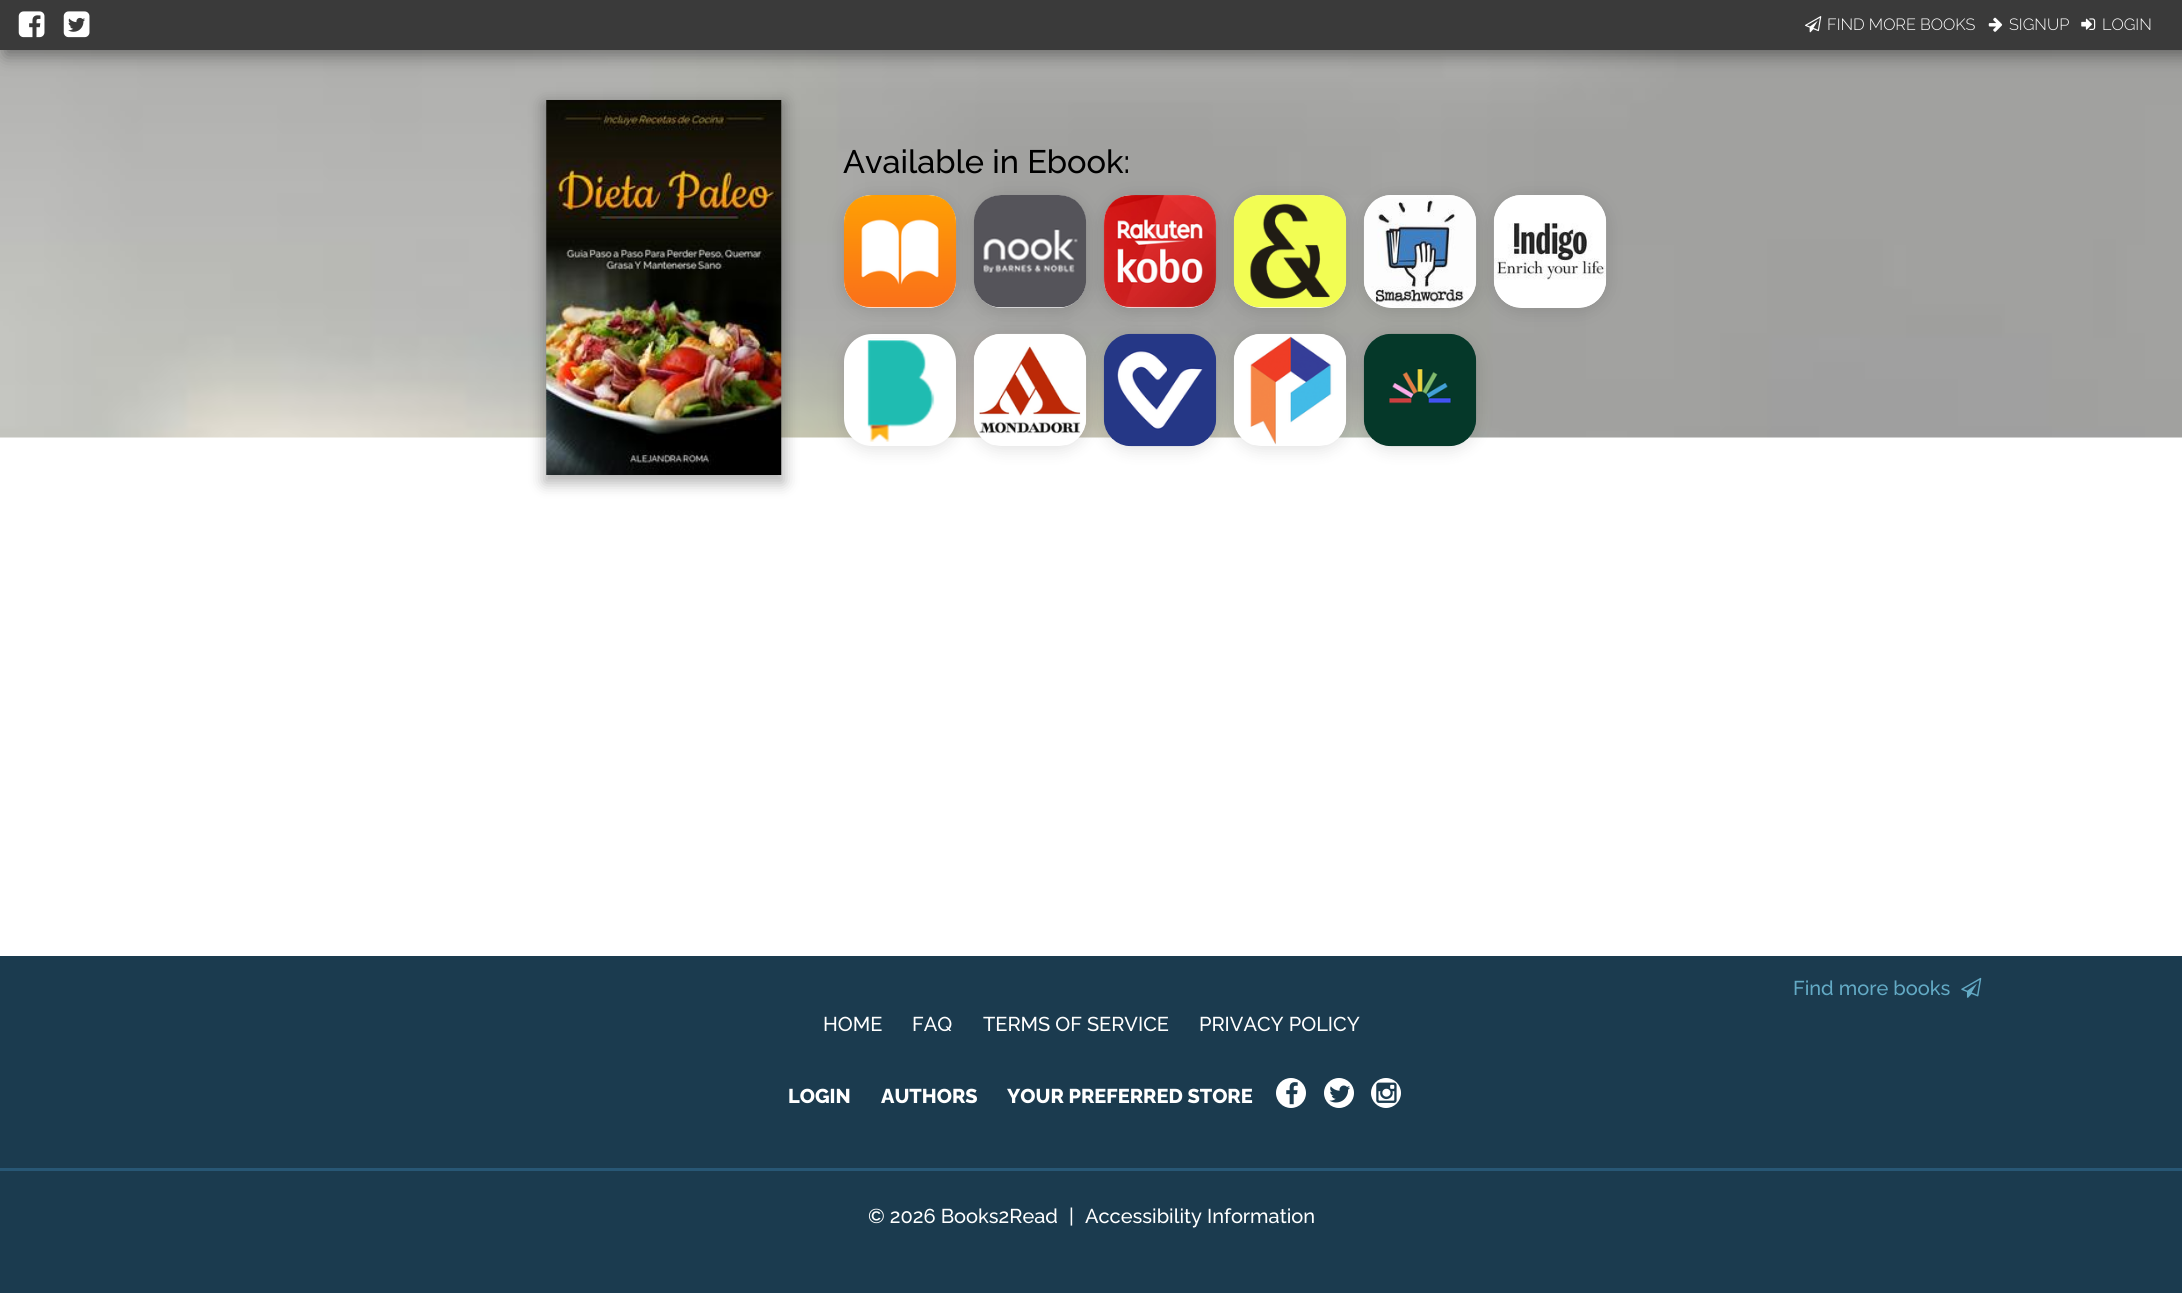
#include <cairo/cairo.h>
#include <math.h>
#include <stddef.h>

static cairo_t *cr;

static void use_color(int r, int g, int b) {
  cairo_set_source_rgb(cr, r / 255.0, g / 255.0, b / 255.0);
}

static void text(double x, double y, const char *s, const char *family, double size, int italic, int bold, int r, int g, int b) {
  cairo_select_font_face(cr, family, italic ? CAIRO_FONT_SLANT_ITALIC : CAIRO_FONT_SLANT_NORMAL,
    bold ? CAIRO_FONT_WEIGHT_BOLD : CAIRO_FONT_WEIGHT_NORMAL);
  cairo_set_font_size(cr, size);
  use_color(r, g, b);
  cairo_move_to(cr, x, y);
  cairo_show_text(cr, s);
}

static void box(double x, double y, double w, double h, int r, int g, int b) {
  use_color(r, g, b);
  cairo_rectangle(cr, x, y, w, h);
  cairo_fill(cr);
}

static void round_rect(double x, double y, double w, double h, double r) {
  cairo_new_sub_path(cr);
  cairo_arc(cr, x + w - r, y + h - r, r, 0, M_PI / 2);
  cairo_arc(cr, x + r, y + h - r, r, M_PI / 2, M_PI);
  cairo_arc(cr, x + r, y + r, r, M_PI, 1.5 * M_PI);
  cairo_arc(cr, x + w - r, y + r, r, 1.5 * M_PI, 2 * M_PI);
  cairo_close_path(cr);
}

static void shadow(double x, double y, double w, double h, double r, double blur, double alpha) {
  cairo_push_group_with_content(cr, CAIRO_CONTENT_ALPHA);
  cairo_set_operator(cr, CAIRO_OPERATOR_SOURCE);
  for (int i = 15; i >= -15 && fmin(w, h) + blur * i / 3 > 0; i -= 2) {
    double e = blur * i / 6;
    cairo_set_source_rgba(cr, 0, 0, 0, alpha * erfc((i - 1) / 8.5) / 2);
    round_rect(x - e, y - e, w + 2 * e, h + 2 * e, fmax(0, fmin(r + e + blur * .6, fmin(w, h) / 2 + e)));
    cairo_fill(cr);
  }
  cairo_pattern_t *soft = cairo_pop_group(cr);
  cairo_mask(cr, soft);
  cairo_pattern_destroy(soft);
}

static void picture(const char *path, double x, double y, double w, double h) {
  cairo_surface_t *image = cairo_image_surface_create_from_png(path);
  cairo_save(cr);
  cairo_set_source_surface(cr, image, x, y);
  cairo_rectangle(cr, x, y, w, h);
  cairo_fill(cr);
  cairo_restore(cr);
  cairo_surface_destroy(image);
}

static void draw(void) {
  use_color(255, 255, 255);
  cairo_paint(cr);
  picture("img_01.png", 0, 50, 2182, 388);
  use_color(0, 0, 0);
  shadow(5, 5, 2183, 50, 0, 9, 0.4);
  box(0, 0, 2182, 50, 58, 58, 58);
  picture("img_02.png", 18, 11, 27, 27);
  picture("img_03.png", 63, 11, 27, 27);
  picture("img_04.png", 1805, 16, 17, 17);
  picture("img_05.png", 1988, 17, 15, 15);
  picture("img_06.png", 2081, 18, 15, 12);
  use_color(0, 0, 0);
  shadow(544, 103, 240, 380, 0, 7.5, 0.3);
  picture("img_07.png", 546, 100, 236, 375);
  shadow(841, 195, 118, 118, 30, 7.5, 0.1);
  use_color(255, 255, 255);
  round_rect(844, 195, 112, 113, 28);
  cairo_fill(cr);
  picture("img_08.png", 843, 195, 114, 113);
  use_color(0, 0, 0);
  shadow(971, 195, 118, 118, 30, 7.5, 0.1);
  use_color(255, 255, 255);
  round_rect(974, 195, 112, 113, 28);
  cairo_fill(cr);
  picture("img_09.png", 973, 195, 114, 113);
  use_color(0, 0, 0);
  shadow(1101, 195, 118, 118, 30, 7.5, 0.1);
  use_color(255, 255, 255);
  round_rect(1104, 195, 112, 113, 28);
  cairo_fill(cr);
  picture("img_10.png", 1103, 195, 114, 113);
  use_color(0, 0, 0);
  shadow(1231, 195, 118, 118, 30, 7.5, 0.1);
  use_color(255, 255, 255);
  round_rect(1234, 195, 112, 113, 28);
  cairo_fill(cr);
  picture("img_11.png", 1233, 195, 114, 113);
  use_color(0, 0, 0);
  shadow(1361, 195, 118, 118, 30, 7.5, 0.1);
  use_color(255, 255, 255);
  round_rect(1364, 195, 112, 113, 28);
  cairo_fill(cr);
  picture("img_12.png", 1363, 195, 114, 112);
  use_color(0, 0, 0);
  shadow(1491, 195, 118, 118, 30, 7.5, 0.1);
  use_color(255, 255, 255);
  round_rect(1494, 195, 112, 113, 28);
  cairo_fill(cr);
  picture("img_13.png", 1493, 195, 114, 112);
  use_color(0, 0, 0);
  shadow(841, 334, 118, 117, 30, 7.5, 0.1);
  use_color(255, 255, 255);
  round_rect(844, 334, 112, 112, 28);
  cairo_fill(cr);
  use_color(0, 0, 0);
  shadow(971, 334, 118, 117, 30, 7.5, 0.1);
  use_color(255, 255, 255);
  round_rect(974, 334, 112, 112, 28);
  cairo_fill(cr);
  picture("img_14.png", 973, 333, 114, 112);
  use_color(0, 0, 0);
  shadow(1101, 334, 118, 117, 30, 7.5, 0.1);
  picture("img_15.png", 1103, 333, 114, 114);
  shadow(1231, 334, 118, 117, 30, 7.5, 0.1);
  use_color(255, 255, 255);
  round_rect(1234, 334, 112, 112, 28);
  cairo_fill(cr);
  picture("img_16.png", 1233, 333, 114, 112);
  use_color(0, 0, 0);
  shadow(1361, 334, 118, 117, 30, 7.5, 0.1);
  picture("img_17.png", 1363, 333, 114, 114);
  picture("img_18.png", 867, 338, 68, 104);
  box(0, 956, 2182, 337, 27, 59, 79);
  picture("img_19.png", 1961, 977, 21, 21);
  use_color(255, 255, 255);
  cairo_arc(cr, 1291, 1093, 15, 0, 2 * M_PI);
  cairo_fill(cr);
  picture("img_20.png", 1286, 1082, 12, 23);
  cairo_arc(cr, 1339, 1093, 15, 0, 2 * M_PI);
  cairo_fill(cr);
  picture("img_21.png", 1329, 1085, 22, 18);
  cairo_arc(cr, 1386, 1093, 15, 0, 2 * M_PI);
  cairo_fill(cr);
  picture("img_22.png", 1376, 1082, 21, 21);
  box(0, 1168, 2182, 3, 40, 87, 117);
  text(1827, 30, "FIND MORE BOOKS", "Raleway Light", 16.25, 0, 0, 255, 255, 255);
  text(2009, 30, "SIGNUP", "Raleway Light", 16.25, 0, 0, 255, 255, 255);
  text(2102, 30, "LOGIN", "Raleway Light", 16.25, 0, 0, 255, 255, 255);
  text(843, 173, "Available in Ebook:", "Raleway Medium", 32.5, 0, 0, 0, 0, 0);
  text(1793, 995, "Find more books", "Raleway Medium", 20, 0, 0, 99, 170, 197);
  text(823, 1031, "HOME", "Raleway Medium", 20, 0, 0, 255, 255, 255);
  text(912, 1031, "FAQ", "Raleway Medium", 20, 0, 0, 255, 255, 255);
  text(983, 1031, "TERMS OF SERVICE", "Raleway Medium", 20, 0, 0, 255, 255, 255);
  text(1199, 1031, "PRIVACY POLICY", "Raleway Medium", 20, 0, 0, 255, 255, 255);
  text(788, 1103, "LOGIN", "Raleway ExtraBold", 20, 0, 0, 255, 255, 255);
  text(881, 1103, "AUTHORS", "Raleway ExtraBold", 20, 0, 0, 255, 255, 255);
  text(1007, 1103, "YOUR PREFERRED STORE", "Raleway ExtraBold", 20, 0, 0, 255, 255, 255);
  text(868, 1223, "© 2026 Books2Read", "Raleway Medium", 20, 0, 0, 255, 255, 255);
  text(1069, 1223, "|", "Raleway Medium", 20, 0, 0, 255, 255, 255);
  text(1085, 1223, "Accessibility Information", "Raleway Medium", 20, 0, 0, 255, 255, 255);
}

int main(void) {
  cairo_surface_t *surface = cairo_image_surface_create(CAIRO_FORMAT_RGB24, 2182, 1293);
  cr = cairo_create(surface);
  cairo_font_options_t *options = cairo_font_options_create();
  cairo_font_options_set_hint_metrics(options, CAIRO_HINT_METRICS_OFF);
  cairo_font_options_set_hint_style(options, CAIRO_HINT_STYLE_NONE);
  cairo_set_font_options(cr, options);
  cairo_set_miter_limit(cr, 4);
  draw();
  cairo_surface_write_to_png(surface, "out.png");
  cairo_font_options_destroy(options);
  cairo_destroy(cr);
  cairo_surface_destroy(surface);
  return 0;
}
